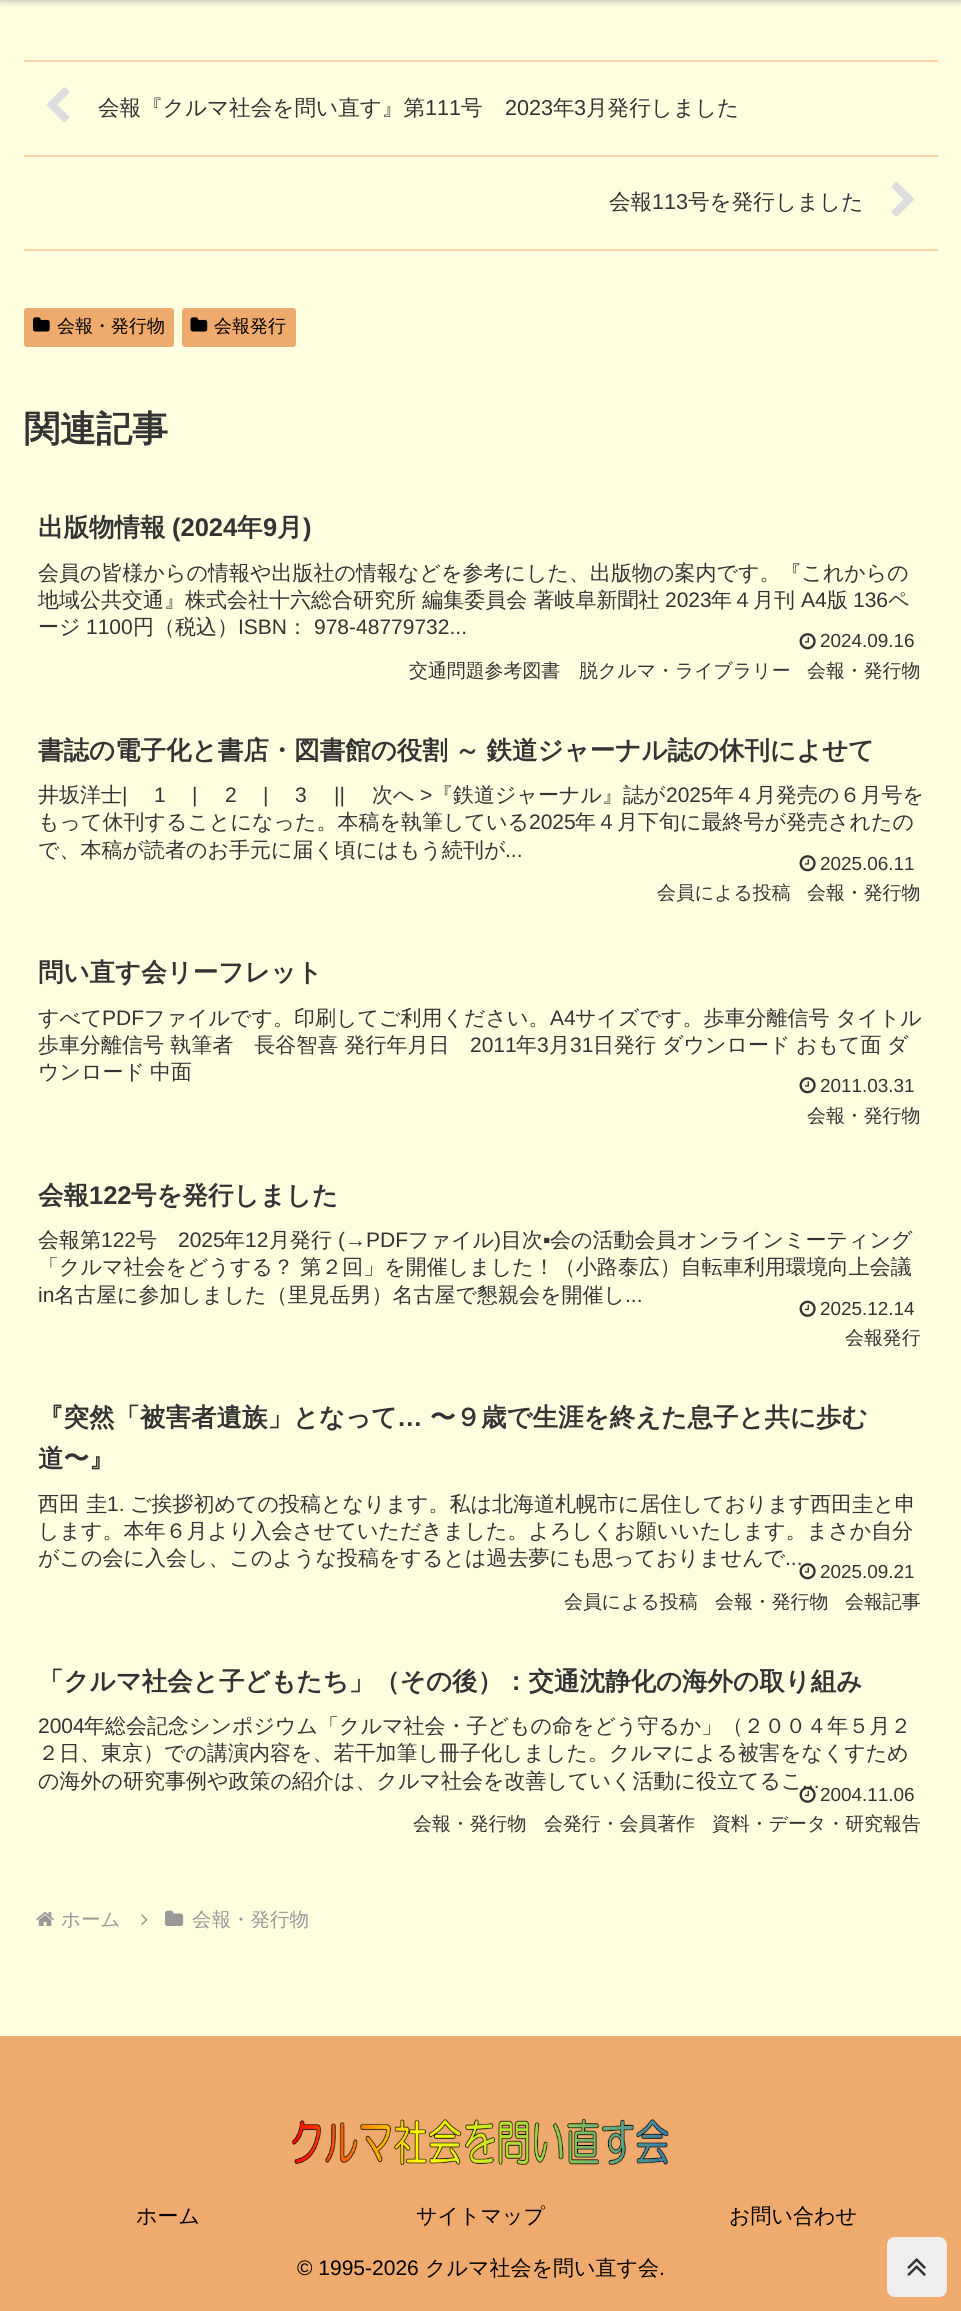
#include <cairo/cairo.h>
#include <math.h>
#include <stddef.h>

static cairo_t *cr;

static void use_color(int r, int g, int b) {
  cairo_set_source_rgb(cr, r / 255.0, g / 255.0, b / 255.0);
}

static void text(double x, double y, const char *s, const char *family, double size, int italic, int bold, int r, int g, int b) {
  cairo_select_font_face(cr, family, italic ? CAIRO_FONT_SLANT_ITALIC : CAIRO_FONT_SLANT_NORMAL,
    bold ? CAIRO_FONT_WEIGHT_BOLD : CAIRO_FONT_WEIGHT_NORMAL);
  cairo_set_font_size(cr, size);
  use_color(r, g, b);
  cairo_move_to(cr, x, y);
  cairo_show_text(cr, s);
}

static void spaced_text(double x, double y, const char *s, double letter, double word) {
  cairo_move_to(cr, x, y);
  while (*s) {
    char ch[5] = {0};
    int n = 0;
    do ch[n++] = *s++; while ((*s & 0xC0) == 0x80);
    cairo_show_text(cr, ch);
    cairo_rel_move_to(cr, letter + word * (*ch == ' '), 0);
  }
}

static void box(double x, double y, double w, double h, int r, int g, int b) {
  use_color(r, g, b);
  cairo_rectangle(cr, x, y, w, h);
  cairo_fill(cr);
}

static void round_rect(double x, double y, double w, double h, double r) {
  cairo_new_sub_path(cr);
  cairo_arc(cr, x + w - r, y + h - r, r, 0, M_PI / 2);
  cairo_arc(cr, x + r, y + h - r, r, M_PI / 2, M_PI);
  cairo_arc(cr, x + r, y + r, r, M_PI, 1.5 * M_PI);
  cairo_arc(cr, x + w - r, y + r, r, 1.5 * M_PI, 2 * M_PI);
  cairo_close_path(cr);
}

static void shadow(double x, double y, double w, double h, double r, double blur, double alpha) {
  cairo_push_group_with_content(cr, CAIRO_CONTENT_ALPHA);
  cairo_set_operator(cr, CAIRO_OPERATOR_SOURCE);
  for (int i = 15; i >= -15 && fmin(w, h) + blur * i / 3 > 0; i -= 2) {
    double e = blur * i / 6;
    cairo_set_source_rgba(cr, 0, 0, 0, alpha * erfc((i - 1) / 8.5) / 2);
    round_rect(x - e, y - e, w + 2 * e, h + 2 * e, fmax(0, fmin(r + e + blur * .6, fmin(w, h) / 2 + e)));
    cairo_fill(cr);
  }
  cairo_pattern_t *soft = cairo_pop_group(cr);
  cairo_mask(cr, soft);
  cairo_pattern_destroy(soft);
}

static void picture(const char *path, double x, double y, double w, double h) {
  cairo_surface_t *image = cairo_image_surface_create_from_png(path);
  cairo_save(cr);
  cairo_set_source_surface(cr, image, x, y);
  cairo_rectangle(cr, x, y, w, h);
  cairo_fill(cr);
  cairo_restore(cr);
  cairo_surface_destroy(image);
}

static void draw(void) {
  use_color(255, 255, 224);
  cairo_paint(cr);
  use_color(169, 169, 169);
  shadow(0, -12, 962, 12, 0, 4, 1);
  box(24, 60, 914, 2, 247, 213, 167);
  box(24, 155, 914, 2, 247, 213, 167);
  picture("img_01.png", 47, 87, 23, 36);
  box(24, 249, 914, 2, 247, 213, 167);
  picture("img_02.png", 891, 181, 23, 36);
  use_color(239, 170, 110);
  round_rect(24, 308, 150, 39, 3);
  cairo_fill(cr);
  picture("img_03.png", 33, 317, 17, 15);
  round_rect(182, 308, 114, 39, 3);
  cairo_fill(cr);
  picture("img_04.png", 190, 317, 18, 15);
  picture("img_05.png", 799, 633, 17, 17);
  picture("img_05.png", 799, 855, 17, 17);
  picture("img_05.png", 799, 1077, 17, 17);
  picture("img_06.png", 799, 1300, 17, 17);
  picture("img_09.png", 36, 1912, 18, 14);
  picture("img_10.png", 141, 1914, 7, 11);
  picture("img_11.png", 165, 1910, 19, 16);
  box(0, 2036, 961, 275, 239, 170, 110);
  picture("img_12.png", 292, 2118, 377, 47);
  use_color(238, 238, 238);
  round_rect(887, 2237, 60, 60, 8);
  cairo_fill(cr);
  picture("img_13.png", 907, 2258, 19, 18);
  text(98, 115, "会報『クルマ社会を問い直す』第", "WenQuanYi Zen Hei Medium", 21.6, 0, 0, 51, 51, 51);
  text(425, 115, "111", "Liberation Sans", 21.6, 0, 0, 51, 51, 51);
  text(461, 115, "号", "WenQuanYi Zen Hei Medium", 21.6, 0, 0, 51, 51, 51);
  text(505, 115, "2023", "Liberation Sans", 21.6, 0, 0, 51, 51, 51);
  text(553, 115, "年", "WenQuanYi Zen Hei Medium", 21.6, 0, 0, 51, 51, 51);
  text(574, 115, "3", "Liberation Sans", 21.6, 0, 0, 51, 51, 51);
  text(586, 115, "月発行しました", "WenQuanYi Zen Hei Medium", 21.6, 0, 0, 51, 51, 51);
  text(609, 209, "会報", "WenQuanYi Zen Hei Medium", 21.6, 0, 0, 51, 51, 51);
  text(652, 209, "113", "Liberation Sans", 21.6, 0, 0, 51, 51, 51);
  text(688, 209, "号を発行しました", "WenQuanYi Zen Hei Medium", 21.6, 0, 0, 51, 51, 51);
  text(57, 332, "会報・発行物", "WenQuanYi Zen Hei Medium", 18, 0, 0, 0, 0, 0);
  text(214, 332, "会報発行", "WenQuanYi Zen Hei Medium", 18, 0, 0, 0, 0, 0);
  text(24, 441, "関連記事", "WenQuanYi Zen Hei", 36, 0, 1, 51, 51, 51);
  text(38, 536, "出版物情報", "WenQuanYi Zen Hei", 25.5, 0, 1, 51, 51, 51);
  text(172, 536, "(2024", "Liberation Sans", 25.5, 0, 1, 51, 51, 51);
  text(237, 536, "年", "WenQuanYi Zen Hei", 25.5, 0, 1, 51, 51, 51);
  text(263, 536, "9", "Liberation Sans", 25.5, 0, 1, 51, 51, 51);
  text(277, 536, "月", "WenQuanYi Zen Hei", 25.5, 0, 1, 51, 51, 51);
  text(303, 536, ")", "Liberation Sans", 25.5, 0, 1, 51, 51, 51);
  text(38, 580, "会員の皆様からの情報や出版社の情報などを参考にした、出版物の案内です。『これからの", "WenQuanYi Zen Hei Medium", 21, 0, 0, 51, 51, 51);
  text(38, 607, "地域公共交通』株式会社十六総合研究所 編集委員会 著岐阜新聞社", "WenQuanYi Zen Hei Medium", 21, 0, 0, 51, 51, 51);
  text(665, 607, "2023", "Liberation Sans", 21, 0, 0, 51, 51, 51);
  text(711, 607, "年４月刊", "WenQuanYi Zen Hei Medium", 21, 0, 0, 51, 51, 51);
  text(801, 607, "A4", "Liberation Sans", 21, 0, 0, 51, 51, 51);
  text(827, 607, "版", "WenQuanYi Zen Hei Medium", 21, 0, 0, 51, 51, 51);
  text(853, 607, "136", "Liberation Sans", 21, 0, 0, 51, 51, 51);
  text(888, 607, "ペ", "WenQuanYi Zen Hei Medium", 21, 0, 0, 51, 51, 51);
  text(38, 634, "ージ", "WenQuanYi Zen Hei Medium", 21, 0, 0, 51, 51, 51);
  text(86, 634, "1100", "Liberation Sans", 21, 0, 0, 51, 51, 51);
  text(133, 634, "円（税込）", "WenQuanYi Zen Hei Medium", 21, 0, 0, 51, 51, 51);
  text(238, 634, "ISBN", "Liberation Sans", 21, 0, 0, 51, 51, 51);
  text(287, 634, "：", "WenQuanYi Zen Hei Medium", 21, 0, 0, 51, 51, 51);
  text(314, 634, "978-48779732...", "Liberation Sans", 21, 0, 0, 51, 51, 51);
  text(820, 647, "2024.09.16", "Liberation Sans", 18.9, 0, 0, 51, 51, 51);
  text(409, 677, "交通問題参考図書　脱クルマ・ライブラリー", "WenQuanYi Zen Hei Medium", 18.9, 0, 0, 51, 51, 51);
  text(807, 677, "会報・発行物", "WenQuanYi Zen Hei Medium", 18.9, 0, 0, 51, 51, 51);
  cairo_select_font_face(cr, "WenQuanYi Zen Hei", CAIRO_FONT_SLANT_NORMAL, CAIRO_FONT_WEIGHT_BOLD);
  cairo_set_font_size(cr, 25.5);
  spaced_text(38, 759, "書誌の電子化と書店・図書館の役割 ～ 鉄道ジャーナル誌の休刊によせて", 0, -1);
  text(38, 802, "井坂洋士", "WenQuanYi Zen Hei Medium", 21, 0, 0, 51, 51, 51);
  text(122, 802, "|", "Liberation Sans", 21, 0, 0, 51, 51, 51);
  text(154, 802, "1", "Liberation Sans", 21, 0, 0, 51, 51, 51);
  text(192, 802, "|", "Liberation Sans", 21, 0, 0, 51, 51, 51);
  text(225, 802, "2", "Liberation Sans", 21, 0, 0, 51, 51, 51);
  text(263, 802, "|", "Liberation Sans", 21, 0, 0, 51, 51, 51);
  text(295, 802, "3", "Liberation Sans", 21, 0, 0, 51, 51, 51);
  text(334, 802, "||", "Liberation Sans", 21, 0, 0, 51, 51, 51);
  text(372, 802, "次へ", "WenQuanYi Zen Hei Medium", 21, 0, 0, 51, 51, 51);
  text(420, 802, ">", "Liberation Sans", 21, 0, 0, 51, 51, 51);
  text(432, 802, "『鉄道ジャーナル』誌が", "WenQuanYi Zen Hei Medium", 21, 0, 0, 51, 51, 51);
  text(666, 802, "2025", "Liberation Sans", 21, 0, 0, 51, 51, 51);
  text(713, 802, "年４月発売の６月号を", "WenQuanYi Zen Hei Medium", 21, 0, 0, 51, 51, 51);
  text(38, 829, "もって休刊することになった。本稿を執筆している", "WenQuanYi Zen Hei Medium", 21, 0, 0, 51, 51, 51);
  text(529, 829, "2025", "Liberation Sans", 21, 0, 0, 51, 51, 51);
  text(575, 829, "年４月下旬に最終号が発売されたの", "WenQuanYi Zen Hei Medium", 21, 0, 0, 51, 51, 51);
  text(38, 857, "で、本稿が読者のお手元に届く頃にはもう続刊が", "WenQuanYi Zen Hei Medium", 21, 0, 0, 51, 51, 51);
  text(505, 857, "...", "Liberation Sans", 21, 0, 0, 51, 51, 51);
  text(820, 870, "2025.06.11", "Liberation Sans", 18.9, 0, 0, 51, 51, 51);
  text(657, 899, "会員による投稿", "WenQuanYi Zen Hei Medium", 18.9, 0, 0, 51, 51, 51);
  text(807, 899, "会報・発行物", "WenQuanYi Zen Hei Medium", 18.9, 0, 0, 51, 51, 51);
  text(38, 981, "問い直す会リーフレット", "WenQuanYi Zen Hei", 25.5, 0, 1, 51, 51, 51);
  text(38, 1025, "すべて", "WenQuanYi Zen Hei Medium", 21, 0, 0, 51, 51, 51);
  text(102, 1025, "PDF", "Liberation Sans", 21, 0, 0, 51, 51, 51);
  text(144, 1025, "ファイルです。印刷してご利用ください。", "WenQuanYi Zen Hei Medium", 21, 0, 0, 51, 51, 51);
  text(550, 1025, "A4", "Liberation Sans", 21, 0, 0, 51, 51, 51);
  text(575, 1025, "サイズです。歩車分離信号 タイトル", "WenQuanYi Zen Hei Medium", 21, 0, 0, 51, 51, 51);
  text(38, 1052, "歩車分離信号 執筆者　長谷智喜 発行年月日", "WenQuanYi Zen Hei Medium", 21, 0, 0, 51, 51, 51);
  text(470, 1052, "2011", "Liberation Sans", 21, 0, 0, 51, 51, 51);
  text(516, 1052, "年", "WenQuanYi Zen Hei Medium", 21, 0, 0, 51, 51, 51);
  text(537, 1052, "3", "Liberation Sans", 21, 0, 0, 51, 51, 51);
  text(549, 1052, "月", "WenQuanYi Zen Hei Medium", 21, 0, 0, 51, 51, 51);
  text(570, 1052, "31", "Liberation Sans", 21, 0, 0, 51, 51, 51);
  text(593, 1052, "日発行", "WenQuanYi Zen Hei Medium", 21, 0, 0, 51, 51, 51);
  text(662, 1052, "ダウンロード", "WenQuanYi Zen Hei Medium", 21, 0, 0, 51, 51, 51);
  text(796, 1052, "おもて面", "WenQuanYi Zen Hei Medium", 21, 0, 0, 51, 51, 51);
  text(887, 1052, "ダ", "WenQuanYi Zen Hei Medium", 21, 0, 0, 51, 51, 51);
  text(38, 1079, "ウンロード", "WenQuanYi Zen Hei Medium", 21, 0, 0, 51, 51, 51);
  text(150, 1079, "中面", "WenQuanYi Zen Hei Medium", 21, 0, 0, 51, 51, 51);
  text(820, 1092, "2011.03.31", "Liberation Sans", 18.9, 0, 0, 51, 51, 51);
  text(807, 1122, "会報・発行物", "WenQuanYi Zen Hei Medium", 18.9, 0, 0, 51, 51, 51);
  text(38, 1204, "会報", "WenQuanYi Zen Hei", 25.5, 0, 1, 51, 51, 51);
  text(89, 1204, "122", "Liberation Sans", 25.5, 0, 1, 51, 51, 51);
  text(131, 1204, "号を発行しました", "WenQuanYi Zen Hei", 25.5, 0, 1, 51, 51, 51);
  text(38, 1247, "会報第", "WenQuanYi Zen Hei Medium", 21, 0, 0, 51, 51, 51);
  text(101, 1247, "122", "Liberation Sans", 21, 0, 0, 51, 51, 51);
  text(136, 1247, "号", "WenQuanYi Zen Hei Medium", 21, 0, 0, 51, 51, 51);
  text(178, 1247, "2025", "Liberation Sans", 21, 0, 0, 51, 51, 51);
  text(224, 1247, "年", "WenQuanYi Zen Hei Medium", 21, 0, 0, 51, 51, 51);
  text(245, 1247, "12", "Liberation Sans", 21, 0, 0, 51, 51, 51);
  text(269, 1247, "月発行", "WenQuanYi Zen Hei Medium", 21, 0, 0, 51, 51, 51);
  text(338, 1247, "(→PDF", "Liberation Sans", 21, 0, 0, 51, 51, 51);
  text(408, 1247, "ファイル", "WenQuanYi Zen Hei Medium", 21, 0, 0, 51, 51, 51);
  text(494, 1247, ")", "Liberation Sans", 21, 0, 0, 51, 51, 51);
  text(501, 1247, "目次", "WenQuanYi Zen Hei Medium", 21, 0, 0, 51, 51, 51);
  text(543, 1247, "▪", "Liberation Sans", 21, 0, 0, 51, 51, 51);
  text(550, 1247, "会の活動会員オンラインミーティング", "WenQuanYi Zen Hei Medium", 21, 0, 0, 51, 51, 51);
  text(38, 1274, "「クルマ社会をどうする？ 第２回」を開催しました！（小路泰広）自転車利用環境向上会議", "WenQuanYi Zen Hei Medium", 21, 0, 0, 51, 51, 51);
  text(38, 1302, "in", "Liberation Sans", 21, 0, 0, 51, 51, 51);
  text(54, 1302, "名古屋に参加しました（里見岳男）名古屋で懇親会を開催し", "WenQuanYi Zen Hei Medium", 21, 0, 0, 51, 51, 51);
  text(625, 1302, "...", "Liberation Sans", 21, 0, 0, 51, 51, 51);
  text(820, 1315, "2025.12.14", "Liberation Sans", 18.9, 0, 0, 51, 51, 51);
  text(845, 1344, "会報発行", "WenQuanYi Zen Hei Medium", 18.9, 0, 0, 51, 51, 51);
  text(38, 1426, "『突然「被害者遺族」となって", "WenQuanYi Zen Hei", 25.5, 0, 1, 51, 51, 51);
  text(397, 1426, "…", "Liberation Sans", 25.5, 0, 1, 51, 51, 51);
  text(430, 1426, "〜９歳で生涯を終えた息子と共に歩む", "WenQuanYi Zen Hei", 25.5, 0, 1, 51, 51, 51);
  text(38, 1467, "道〜』", "WenQuanYi Zen Hei", 25.5, 0, 1, 51, 51, 51);
  text(38, 1511, "西田 圭", "WenQuanYi Zen Hei Medium", 21, 0, 0, 51, 51, 51);
  text(107, 1511, "1.", "Liberation Sans", 21, 0, 0, 51, 51, 51);
  text(130, 1511, "ご挨拶初めての投稿となります。私は北海道札幌市に居住しております西田圭と申", "WenQuanYi Zen Hei Medium", 21, 0, 0, 51, 51, 51);
  text(38, 1538, "します。本年６月より入会させていただきました。よろしくお願いいたします。まさか自分", "WenQuanYi Zen Hei Medium", 21, 0, 0, 51, 51, 51);
  text(38, 1565, "がこの会に入会し、このような投稿をするとは過去夢にも思っておりませんで", "WenQuanYi Zen Hei Medium", 21, 0, 0, 51, 51, 51);
  text(785, 1565, "...", "Liberation Sans", 21, 0, 0, 51, 51, 51);
  picture("img_07.png", 799, 1563, 17, 17);
  text(820, 1578, "2025.09.21", "Liberation Sans", 18.9, 0, 0, 51, 51, 51);
  text(564, 1608, "会員による投稿", "WenQuanYi Zen Hei Medium", 18.9, 0, 0, 51, 51, 51);
  text(715, 1608, "会報・発行物", "WenQuanYi Zen Hei Medium", 18.9, 0, 0, 51, 51, 51);
  text(845, 1608, "会報記事", "WenQuanYi Zen Hei Medium", 18.9, 0, 0, 51, 51, 51);
  text(38, 1690, "「クルマ社会と子どもたち」（その後）：交通沈静化の海外の取り組み", "WenQuanYi Zen Hei", 25.5, 0, 1, 51, 51, 51);
  text(38, 1733, "2004", "Liberation Sans", 21, 0, 0, 51, 51, 51);
  text(84, 1733, "年総会記念シンポジウム「クルマ社会・子どもの命をどう守るか」（２００４年５月２", "WenQuanYi Zen Hei Medium", 21, 0, 0, 51, 51, 51);
  text(38, 1760, "２日、東京）での講演内容を、若干加筆し冊子化しました。クルマによる被害をなくすため", "WenQuanYi Zen Hei Medium", 21, 0, 0, 51, 51, 51);
  text(38, 1788, "の海外の研究事例や政策の紹介は、クルマ社会を改善していく活動に役立てるこ", "WenQuanYi Zen Hei Medium", 21, 0, 0, 51, 51, 51);
  text(802, 1788, "...", "Liberation Sans", 21, 0, 0, 51, 51, 51);
  picture("img_08.png", 799, 1786, 17, 17);
  text(820, 1801, "2004.11.06", "Liberation Sans", 18.9, 0, 0, 51, 51, 51);
  text(413, 1830, "会報・発行物", "WenQuanYi Zen Hei Medium", 18.9, 0, 0, 51, 51, 51);
  text(544, 1830, "会発行・会員著作", "WenQuanYi Zen Hei Medium", 18.9, 0, 0, 51, 51, 51);
  text(712, 1830, "資料・データ・研究報告", "WenQuanYi Zen Hei Medium", 18.9, 0, 0, 51, 51, 51);
  text(61, 1926, "ホーム", "WenQuanYi Zen Hei Medium", 19.5, 0, 0, 153, 153, 153);
  text(192, 1926, "会報・発行物", "WenQuanYi Zen Hei Medium", 19.5, 0, 0, 153, 153, 153);
  text(136, 2223, "ホーム", "WenQuanYi Zen Hei Medium", 21, 0, 0, 0, 0, 0);
  text(416, 2223, "サイトマップ", "WenQuanYi Zen Hei Medium", 21, 0, 0, 0, 0, 0);
  text(729, 2223, "お問い合わせ", "WenQuanYi Zen Hei Medium", 21, 0, 0, 0, 0, 0);
  text(297, 2275, "© 1995-2026", "Liberation Sans", 21, 0, 0, 0, 0, 0);
  text(425, 2275, "クルマ社会を問い直す会", "WenQuanYi Zen Hei Medium", 21, 0, 0, 0, 0, 0);
  text(659, 2275, ".", "Liberation Sans", 21, 0, 0, 0, 0, 0);
}

int main(void) {
  cairo_surface_t *surface = cairo_image_surface_create(CAIRO_FORMAT_RGB24, 961, 2311);
  cr = cairo_create(surface);
  cairo_font_options_t *options = cairo_font_options_create();
  cairo_font_options_set_hint_metrics(options, CAIRO_HINT_METRICS_OFF);
  cairo_font_options_set_hint_style(options, CAIRO_HINT_STYLE_NONE);
  cairo_set_font_options(cr, options);
  cairo_set_miter_limit(cr, 4);
  draw();
  cairo_surface_write_to_png(surface, "out.png");
  cairo_font_options_destroy(options);
  cairo_destroy(cr);
  cairo_surface_destroy(surface);
  return 0;
}
